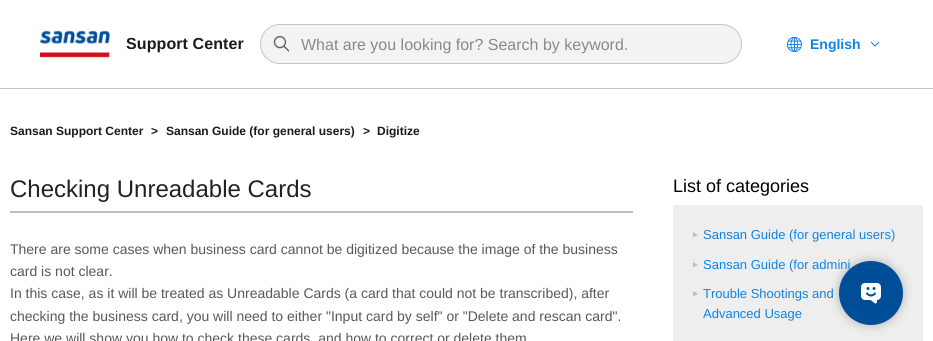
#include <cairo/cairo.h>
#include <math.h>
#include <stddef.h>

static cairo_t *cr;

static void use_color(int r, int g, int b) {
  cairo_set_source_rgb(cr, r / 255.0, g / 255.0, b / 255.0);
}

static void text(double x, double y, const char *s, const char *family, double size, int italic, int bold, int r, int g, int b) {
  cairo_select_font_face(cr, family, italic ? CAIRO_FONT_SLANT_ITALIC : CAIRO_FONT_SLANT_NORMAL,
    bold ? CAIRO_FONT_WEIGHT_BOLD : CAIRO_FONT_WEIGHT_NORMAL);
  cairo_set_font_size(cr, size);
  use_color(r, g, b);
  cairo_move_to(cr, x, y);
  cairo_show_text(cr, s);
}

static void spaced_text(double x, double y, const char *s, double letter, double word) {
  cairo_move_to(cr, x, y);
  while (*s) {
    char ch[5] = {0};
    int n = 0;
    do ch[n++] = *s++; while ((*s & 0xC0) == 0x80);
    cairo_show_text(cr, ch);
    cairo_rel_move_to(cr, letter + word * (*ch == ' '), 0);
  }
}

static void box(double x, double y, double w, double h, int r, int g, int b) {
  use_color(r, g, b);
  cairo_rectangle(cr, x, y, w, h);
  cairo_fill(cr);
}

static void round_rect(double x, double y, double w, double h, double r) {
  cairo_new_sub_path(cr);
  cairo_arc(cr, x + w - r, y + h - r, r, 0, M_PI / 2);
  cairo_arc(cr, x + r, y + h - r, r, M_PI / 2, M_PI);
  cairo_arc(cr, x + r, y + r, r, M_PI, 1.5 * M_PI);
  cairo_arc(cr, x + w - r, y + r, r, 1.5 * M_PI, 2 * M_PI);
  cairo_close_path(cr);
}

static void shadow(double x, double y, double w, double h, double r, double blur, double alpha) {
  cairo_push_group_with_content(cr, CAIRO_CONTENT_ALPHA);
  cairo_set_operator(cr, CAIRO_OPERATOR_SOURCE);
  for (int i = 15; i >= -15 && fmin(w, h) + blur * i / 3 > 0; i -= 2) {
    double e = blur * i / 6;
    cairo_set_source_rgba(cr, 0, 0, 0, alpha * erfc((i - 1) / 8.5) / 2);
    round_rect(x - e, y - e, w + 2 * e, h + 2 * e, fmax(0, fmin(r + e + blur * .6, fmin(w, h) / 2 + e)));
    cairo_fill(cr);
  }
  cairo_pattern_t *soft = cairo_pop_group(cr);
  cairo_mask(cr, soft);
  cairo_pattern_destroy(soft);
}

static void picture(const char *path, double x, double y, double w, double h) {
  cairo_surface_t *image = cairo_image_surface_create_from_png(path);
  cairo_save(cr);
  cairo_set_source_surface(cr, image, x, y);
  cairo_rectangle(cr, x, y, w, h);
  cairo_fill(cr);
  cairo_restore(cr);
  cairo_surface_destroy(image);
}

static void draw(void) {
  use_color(255, 255, 255);
  cairo_paint(cr);
  box(0, 88, 933, 1, 197, 197, 197);
  picture("img_01.png", 40, 30, 70, 28);
  use_color(243, 243, 243);
  round_rect(260.5, 24.5, 481, 39, 19.5);
  cairo_fill_preserve(cr);
  use_color(197, 197, 197);
  cairo_set_line_width(cr, 1);
  cairo_stroke(cr);
  picture("img_02.png", 273, 36, 16, 16);
  picture("img_03.png", 787, 37, 15, 15);
  cairo_new_path(cr);
  cairo_move_to(cr, 879, 42);
  cairo_line_to(cr, 875, 46);
  cairo_line_to(cr, 871, 42);
  use_color(15, 121, 225);
  cairo_stroke(cr);
  box(10, 211, 623, 2, 191, 191, 191);
  use_color(238, 238, 238);
  round_rect(673, 205, 250, 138, 2);
  cairo_fill(cr);
  use_color(191, 191, 191);
  cairo_new_path(cr);
  cairo_move_to(cr, 693, 232);
  cairo_line_to(cr, 698, 235);
  cairo_line_to(cr, 693, 237.5);
  cairo_close_path(cr);
  cairo_move_to(cr, 693, 262);
  cairo_line_to(cr, 698, 265);
  cairo_line_to(cr, 693, 267.5);
  cairo_close_path(cr);
  cairo_fill(cr);
  cairo_new_path(cr);
  cairo_move_to(cr, 693, 291);
  cairo_line_to(cr, 698, 294);
  cairo_line_to(cr, 693, 296.5);
  cairo_close_path(cr);
  cairo_fill(cr);
  use_color(0, 0, 0);
  shadow(839, 261, 64, 64, 32, 5, 0.25);
  cairo_select_font_face(cr, "Liberation Sans", CAIRO_FONT_SLANT_NORMAL, CAIRO_FONT_WEIGHT_BOLD);
  cairo_set_font_size(cr, 16);
  use_color(26, 26, 26);
  spaced_text(126, 49, "Support Center", 0.1, 0);
  text(301, 50, "What are you looking for? Search by keyword.", "Liberation Sans", 16, 0, 0, 137, 137, 137);
  text(810, 49, "English", "Liberation Sans", 14, 0, 1, 14, 132, 229);
  text(10, 135, "Sansan Support Center", "Liberation Sans", 12, 0, 1, 26, 26, 26);
  text(151, 135, ">", "Liberation Sans", 12, 0, 1, 26, 26, 26);
  text(166, 135, "Sansan Guide (for general users)", "Liberation Sans", 12, 0, 1, 26, 26, 26);
  text(363, 135, ">", "Liberation Sans", 12, 0, 1, 26, 26, 26);
  text(377, 135, "Digitize", "Liberation Sans", 12, 0, 1, 26, 26, 26);
  text(10, 197, "Checking Unreadable Cards", "Liberation Sans", 24, 0, 0, 34, 34, 34);
  text(10, 254, "There are some cases when business card cannot be digitized because the image of the business", "Liberation Sans", 14, 0, 0, 88, 88, 88);
  text(10, 276, "card is not clear.", "Liberation Sans", 14, 0, 0, 88, 88, 88);
  text(10, 298, "In this case, as it will be treated as Unreadable Cards (a card that could not be transcribed), after", "Liberation Sans", 14, 0, 0, 88, 88, 88);
  text(10, 321, "checking the business card, you will need to either \"Input card by self\" or \"Delete and rescan card\".", "Liberation Sans", 14, 0, 0, 88, 88, 88);
  text(10, 343, "Here we will show you how to check these cards, and how to correct or delete them", "Liberation Sans", 14, 0, 0, 88, 88, 88);
  text(673, 192, "List of categories", "Liberation Sans", 18, 0, 0, 0, 0, 0);
  text(703, 239, "Sansan Guide (for general users)", "Liberation Sans", 13, 0, 0, 14, 132, 229);
  text(703, 269, "Sansan Guide (for admini", "Liberation Sans", 13, 0, 0, 14, 132, 229);
  text(703, 298, "Trouble Shootings and", "Liberation Sans", 13, 0, 0, 14, 132, 229);
  text(703, 318, "Advanced Usage", "Liberation Sans", 13, 0, 0, 14, 132, 229);
  use_color(0, 78, 152);
  cairo_new_path(cr);
  cairo_arc(cr, 871, 293, 32, 0, 2 * M_PI);
  cairo_fill(cr);
  picture("img_04.png", 861, 283, 20, 21);
}

int main(void) {
  cairo_surface_t *surface = cairo_image_surface_create(CAIRO_FORMAT_RGB24, 933, 341);
  cr = cairo_create(surface);
  cairo_font_options_t *options = cairo_font_options_create();
  cairo_font_options_set_hint_metrics(options, CAIRO_HINT_METRICS_OFF);
  cairo_font_options_set_hint_style(options, CAIRO_HINT_STYLE_NONE);
  cairo_set_font_options(cr, options);
  cairo_set_miter_limit(cr, 4);
  draw();
  cairo_surface_write_to_png(surface, "out.png");
  cairo_font_options_destroy(options);
  cairo_destroy(cr);
  cairo_surface_destroy(surface);
  return 0;
}
